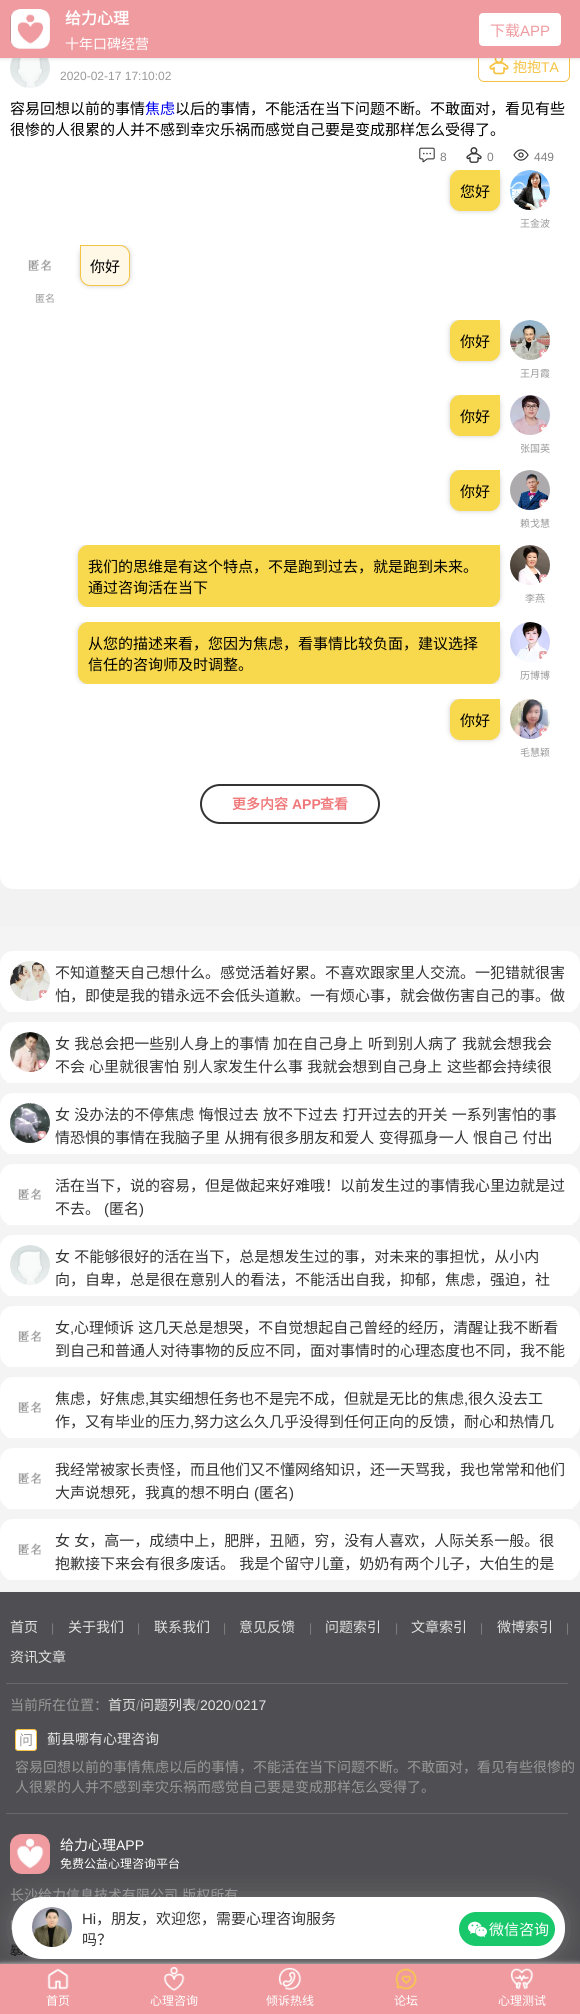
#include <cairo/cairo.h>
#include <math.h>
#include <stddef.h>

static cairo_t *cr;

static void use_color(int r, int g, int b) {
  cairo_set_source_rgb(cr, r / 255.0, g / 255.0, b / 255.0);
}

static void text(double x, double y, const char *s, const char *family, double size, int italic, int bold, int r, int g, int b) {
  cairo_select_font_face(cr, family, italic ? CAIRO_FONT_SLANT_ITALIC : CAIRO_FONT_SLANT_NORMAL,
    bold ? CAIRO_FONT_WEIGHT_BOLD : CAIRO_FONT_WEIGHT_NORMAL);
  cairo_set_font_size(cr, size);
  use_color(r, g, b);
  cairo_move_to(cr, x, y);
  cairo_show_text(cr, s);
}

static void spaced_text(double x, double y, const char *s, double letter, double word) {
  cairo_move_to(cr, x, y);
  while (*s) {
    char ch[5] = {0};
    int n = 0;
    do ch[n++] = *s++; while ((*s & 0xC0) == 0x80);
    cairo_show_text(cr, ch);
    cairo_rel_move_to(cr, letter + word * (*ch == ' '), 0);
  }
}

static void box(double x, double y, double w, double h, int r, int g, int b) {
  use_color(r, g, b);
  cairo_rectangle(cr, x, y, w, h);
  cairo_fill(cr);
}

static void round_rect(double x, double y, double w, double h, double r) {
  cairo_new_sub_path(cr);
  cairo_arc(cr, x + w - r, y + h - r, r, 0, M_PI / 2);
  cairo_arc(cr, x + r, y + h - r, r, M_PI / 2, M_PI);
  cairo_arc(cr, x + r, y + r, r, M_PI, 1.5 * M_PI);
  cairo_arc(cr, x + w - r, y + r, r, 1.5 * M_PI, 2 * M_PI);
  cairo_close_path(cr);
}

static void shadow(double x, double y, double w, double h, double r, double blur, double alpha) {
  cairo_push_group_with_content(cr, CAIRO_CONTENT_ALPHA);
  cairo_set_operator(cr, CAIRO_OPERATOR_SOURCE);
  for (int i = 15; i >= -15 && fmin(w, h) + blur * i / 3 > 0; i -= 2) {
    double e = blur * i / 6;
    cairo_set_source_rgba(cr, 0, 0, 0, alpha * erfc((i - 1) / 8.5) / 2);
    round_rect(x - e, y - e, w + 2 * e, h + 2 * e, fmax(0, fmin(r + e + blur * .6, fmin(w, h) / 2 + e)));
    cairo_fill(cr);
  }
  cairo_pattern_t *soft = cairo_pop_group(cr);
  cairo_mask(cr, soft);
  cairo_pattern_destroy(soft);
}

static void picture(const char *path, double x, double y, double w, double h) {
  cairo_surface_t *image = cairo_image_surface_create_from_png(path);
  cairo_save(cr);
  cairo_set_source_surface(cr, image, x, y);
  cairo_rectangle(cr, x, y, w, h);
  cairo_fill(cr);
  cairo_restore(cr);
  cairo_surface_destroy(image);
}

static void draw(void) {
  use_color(242, 242, 242);
  cairo_paint(cr);
  use_color(255, 255, 255);
  round_rect(0, -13, 580, 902, 13);
  cairo_fill(cr);
  picture("img_02.png", 10, 58, 40, 30);
  round_rect(478.5, 48.5, 91, 33, 5.5);
  use_color(245, 195, 68);
  cairo_set_line_width(cr, 1);
  cairo_stroke(cr);
  picture("img_03.png", 489, 58, 20, 17);
  use_color(0, 0, 0);
  shadow(0, 1, 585, 58, 0, 1.5, 0.1);
  box(0, 0, 580, 58, 239, 155, 160);
  picture("img_01.png", 10, 9, 40, 40);
  use_color(255, 255, 255);
  round_rect(479.5, 13.5, 81, 32, 3.5);
  cairo_fill_preserve(cr);
  cairo_stroke(cr);
  picture("img_04.png", 419, 147, 16, 16);
  picture("img_05.png", 466, 147, 16, 16);
  picture("img_06.png", 513, 149, 16, 12);
  cairo_save(cr);
  cairo_rectangle(cr, 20, 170, 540, 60);
  cairo_clip(cr);
  use_color(204, 204, 204);
  shadow(450, 170, 50, 41, 10, 2.5, 1);
  cairo_restore(cr);
  use_color(248, 217, 77);
  cairo_new_path(cr);
  cairo_move_to(cr, 460, 170.5);
  cairo_line_to(cr, 499.5, 170.5);
  cairo_line_to(cr, 499.5, 201);
  cairo_curve_to(cr, 499.5, 206, 495, 210.5, 490, 210.5);
  cairo_line_to(cr, 460, 210.5);
  cairo_curve_to(cr, 455, 210.5, 450.5, 206, 450.5, 201);
  cairo_line_to(cr, 450.5, 180);
  cairo_curve_to(cr, 450.5, 175, 455, 170.5, 460, 170.5);
  cairo_close_path(cr);
  cairo_fill_preserve(cr);
  cairo_stroke(cr);
  picture("img_07.png", 510, 170, 40, 40);
  cairo_save(cr);
  cairo_rectangle(cr, 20, 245, 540, 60);
  cairo_clip(cr);
  use_color(204, 204, 204);
  shadow(80, 245, 50, 41, 10, 2.5, 1);
  cairo_restore(cr);
  use_color(255, 248, 230);
  cairo_new_path(cr);
  cairo_move_to(cr, 80.5, 245.5);
  cairo_line_to(cr, 120, 245.5);
  cairo_curve_to(cr, 125, 245.5, 129.5, 250, 129.5, 255);
  cairo_line_to(cr, 129.5, 276);
  cairo_curve_to(cr, 129.5, 281, 125, 285.5, 120, 285.5);
  cairo_line_to(cr, 90, 285.5);
  cairo_curve_to(cr, 85, 285.5, 80.5, 281, 80.5, 276);
  cairo_close_path(cr);
  cairo_fill_preserve(cr);
  use_color(245, 195, 68);
  cairo_stroke(cr);
  picture("img_08.png", 28, 259, 23, 12);
  cairo_save(cr);
  cairo_rectangle(cr, 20, 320, 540, 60);
  cairo_clip(cr);
  use_color(204, 204, 204);
  shadow(450, 320, 50, 41, 10, 2.5, 1);
  cairo_restore(cr);
  use_color(248, 217, 77);
  cairo_new_path(cr);
  cairo_move_to(cr, 460, 320.5);
  cairo_line_to(cr, 499.5, 320.5);
  cairo_line_to(cr, 499.5, 351);
  cairo_curve_to(cr, 499.5, 356, 495, 360.5, 490, 360.5);
  cairo_line_to(cr, 460, 360.5);
  cairo_curve_to(cr, 455, 360.5, 450.5, 356, 450.5, 351);
  cairo_line_to(cr, 450.5, 330);
  cairo_curve_to(cr, 450.5, 325, 455, 320.5, 460, 320.5);
  cairo_close_path(cr);
  cairo_fill_preserve(cr);
  cairo_stroke(cr);
  picture("img_09.png", 510, 320, 40, 40);
  cairo_save(cr);
  cairo_rectangle(cr, 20, 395, 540, 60);
  cairo_clip(cr);
  use_color(204, 204, 204);
  shadow(450, 395, 50, 41, 10, 2.5, 1);
  cairo_restore(cr);
  cairo_new_path(cr);
  cairo_move_to(cr, 460, 395.5);
  cairo_line_to(cr, 499.5, 395.5);
  cairo_line_to(cr, 499.5, 426);
  cairo_curve_to(cr, 499.5, 431, 495, 435.5, 490, 435.5);
  cairo_line_to(cr, 460, 435.5);
  cairo_curve_to(cr, 455, 435.5, 450.5, 431, 450.5, 426);
  cairo_line_to(cr, 450.5, 405);
  cairo_curve_to(cr, 450.5, 400, 455, 395.5, 460, 395.5);
  cairo_close_path(cr);
  cairo_fill_preserve(cr);
  cairo_stroke(cr);
  picture("img_10.png", 510, 395, 40, 40);
  cairo_save(cr);
  cairo_rectangle(cr, 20, 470, 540, 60);
  cairo_clip(cr);
  use_color(204, 204, 204);
  shadow(450, 470, 50, 41, 10, 2.5, 1);
  cairo_restore(cr);
  cairo_new_path(cr);
  cairo_move_to(cr, 460, 470.5);
  cairo_line_to(cr, 499.5, 470.5);
  cairo_line_to(cr, 499.5, 501);
  cairo_curve_to(cr, 499.5, 506, 495, 510.5, 490, 510.5);
  cairo_line_to(cr, 460, 510.5);
  cairo_curve_to(cr, 455, 510.5, 450.5, 506, 450.5, 501);
  cairo_line_to(cr, 450.5, 480);
  cairo_curve_to(cr, 450.5, 475, 455, 470.5, 460, 470.5);
  cairo_close_path(cr);
  cairo_fill_preserve(cr);
  cairo_stroke(cr);
  picture("img_11.png", 510, 470, 40, 40);
  cairo_save(cr);
  cairo_rectangle(cr, 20, 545, 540, 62);
  cairo_clip(cr);
  use_color(204, 204, 204);
  shadow(78, 545, 422, 62, 10, 2.5, 1);
  cairo_restore(cr);
  cairo_new_path(cr);
  cairo_move_to(cr, 88, 545.5);
  cairo_line_to(cr, 499.5, 545.5);
  cairo_line_to(cr, 499.5, 597);
  cairo_curve_to(cr, 499.5, 602, 495, 606.5, 490, 606.5);
  cairo_line_to(cr, 88, 606.5);
  cairo_curve_to(cr, 83, 606.5, 78.5, 602, 78.5, 597);
  cairo_line_to(cr, 78.5, 555);
  cairo_curve_to(cr, 78.5, 550, 83, 545.5, 88, 545.5);
  cairo_close_path(cr);
  cairo_fill_preserve(cr);
  cairo_stroke(cr);
  picture("img_12.png", 510, 545, 40, 40);
  cairo_save(cr);
  cairo_rectangle(cr, 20, 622, 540, 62);
  cairo_clip(cr);
  use_color(204, 204, 204);
  shadow(78, 622, 422, 62, 10, 2.5, 1);
  cairo_restore(cr);
  cairo_new_path(cr);
  cairo_move_to(cr, 88, 622.5);
  cairo_line_to(cr, 499.5, 622.5);
  cairo_line_to(cr, 499.5, 674);
  cairo_curve_to(cr, 499.5, 679, 495, 683.5, 490, 683.5);
  cairo_line_to(cr, 88, 683.5);
  cairo_curve_to(cr, 83, 683.5, 78.5, 679, 78.5, 674);
  cairo_line_to(cr, 78.5, 632);
  cairo_curve_to(cr, 78.5, 627, 83, 622.5, 88, 622.5);
  cairo_close_path(cr);
  cairo_fill_preserve(cr);
  cairo_stroke(cr);
  picture("img_13.png", 510, 622, 40, 40);
  cairo_save(cr);
  cairo_rectangle(cr, 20, 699, 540, 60);
  cairo_clip(cr);
  use_color(204, 204, 204);
  shadow(450, 699, 50, 41, 10, 2.5, 1);
  cairo_restore(cr);
  cairo_new_path(cr);
  cairo_move_to(cr, 460, 699.5);
  cairo_line_to(cr, 499.5, 699.5);
  cairo_line_to(cr, 499.5, 730);
  cairo_curve_to(cr, 499.5, 735, 495, 739.5, 490, 739.5);
  cairo_line_to(cr, 460, 739.5);
  cairo_curve_to(cr, 455, 739.5, 450.5, 735, 450.5, 730);
  cairo_line_to(cr, 450.5, 709);
  cairo_curve_to(cr, 450.5, 704, 455, 699.5, 460, 699.5);
  cairo_close_path(cr);
  cairo_fill_preserve(cr);
  cairo_stroke(cr);
  picture("img_14.png", 510, 699, 40, 40);
  round_rect(201, 785, 178, 38, 19);
  use_color(51, 51, 51);
  cairo_set_line_width(cr, 2);
  cairo_stroke(cr);
  box(0, 927, 580, 665, 245, 244, 244);
  use_color(255, 255, 255);
  round_rect(0, 951, 580, 61, 13);
  cairo_fill(cr);
  box(7, 1011, 566, 1, 255, 255, 255);
  picture("img_15.png", 10, 961, 40, 40);
  round_rect(0, 1022, 580, 61, 13);
  cairo_fill(cr);
  box(7, 1082, 566, 1, 255, 255, 255);
  picture("img_16.png", 10, 1032, 40, 40);
  round_rect(0, 1093, 580, 61, 13);
  cairo_fill(cr);
  box(7, 1153, 566, 1, 255, 255, 255);
  picture("img_17.png", 10, 1103, 40, 40);
  round_rect(0, 1164, 580, 61, 13);
  cairo_fill(cr);
  box(7, 1224, 566, 1, 255, 255, 255);
  picture("img_08.png", 18, 1188, 23, 12);
  round_rect(0, 1235, 580, 61, 13);
  cairo_fill(cr);
  box(7, 1295, 566, 1, 255, 255, 255);
  picture("img_18.png", 10, 1245, 40, 40);
  round_rect(0, 1306, 580, 61, 13);
  cairo_fill(cr);
  box(7, 1366, 566, 1, 255, 255, 255);
  picture("img_08.png", 18, 1330, 23, 12);
  round_rect(0, 1377, 580, 61, 13);
  cairo_fill(cr);
  box(7, 1437, 566, 1, 255, 255, 255);
  picture("img_08.png", 18, 1401, 23, 12);
  round_rect(0, 1448, 580, 61, 13);
  cairo_fill(cr);
  box(7, 1508, 566, 1, 255, 255, 255);
  picture("img_08.png", 18, 1472, 23, 12);
  round_rect(0, 1519, 580, 61, 13);
  cairo_fill(cr);
  box(7, 1579, 566, 1, 255, 255, 255);
  picture("img_08.png", 18, 1543, 23, 12);
  box(0, 1592, 580, 372, 79, 79, 83);
  box(6, 1683, 562, 1, 104, 104, 104);
  use_color(255, 255, 255);
  round_rect(15.5, 1729.5, 21, 21, 2.5);
  cairo_fill_preserve(cr);
  use_color(245, 195, 68);
  cairo_set_line_width(cr, 1);
  cairo_stroke(cr);
  box(6, 1813, 562, 1, 104, 104, 104);
  picture("img_19.png", 10, 1834, 40, 40);
  picture("img_20.png", 10, 1944, 19, 12);
  use_color(168, 168, 168);
  shadow(12, 1897, 553, 62, 30, 12, 0.35);
  text(65, 24, "给力心理", "Noto Sans CJK SC", 16, 0, 1, 255, 255, 255);
  text(65, 49, "十年口碑经营", "Noto Sans CJK SC", 14, 0, 0, 255, 255, 255);
  text(490, 36, "下载", "Noto Sans CJK SC", 15, 0, 0, 239, 155, 160);
  text(520, 36, "APP", "Liberation Sans", 15, 0, 0, 239, 155, 160);
  text(513, 72, "抱抱", "Noto Sans CJK SC", 14, 0, 0, 245, 195, 68);
  text(541, 72, "TA", "Liberation Sans", 14, 0, 0, 245, 195, 68);
  text(60, 80, "2020-02-17 17:10:02", "Liberation Sans", 12, 0, 0, 153, 153, 153);
  text(10, 114, "容易回想以前的事情", "Noto Sans CJK SC", 15, 0, 0, 0, 0, 0);
  text(145, 114, "焦虑", "Noto Sans CJK SC", 15, 0, 0, 0, 0, 238);
  text(175, 114, "以后的事情，不能活在当下问题不断。不敢面对，看见有些", "Noto Sans CJK SC", 15, 0, 0, 0, 0, 0);
  text(10, 135, "很惨的人很累的人并不感到幸灾乐祸而感觉自己要是变成那样怎么受得了。", "Noto Sans CJK SC", 15, 0, 0, 0, 0, 0);
  text(440, 161, "8", "Liberation Sans", 12, 0, 0, 128, 128, 128);
  text(487, 161, "0", "Liberation Sans", 12, 0, 0, 128, 128, 128);
  text(534, 161, "449", "Liberation Sans", 12, 0, 0, 128, 128, 128);
  text(460, 197, "您好", "Noto Sans CJK SC", 15, 0, 0, 0, 0, 0);
  text(520, 227, "王金波", "Noto Sans CJK SC", 10, 0, 0, 153, 153, 153);
  text(90, 272, "你好", "Noto Sans CJK SC", 15, 0, 0, 0, 0, 0);
  text(35, 302, "匿名", "Noto Sans CJK SC", 10, 0, 0, 153, 153, 153);
  text(460, 347, "你好", "Noto Sans CJK SC", 15, 0, 0, 0, 0, 0);
  text(520, 377, "王月霞", "Noto Sans CJK SC", 10, 0, 0, 153, 153, 153);
  text(460, 422, "你好", "Noto Sans CJK SC", 15, 0, 0, 0, 0, 0);
  text(520, 452, "张国英", "Noto Sans CJK SC", 10, 0, 0, 153, 153, 153);
  text(460, 497, "你好", "Noto Sans CJK SC", 15, 0, 0, 0, 0, 0);
  text(520, 527, "赖戈慧", "Noto Sans CJK SC", 10, 0, 0, 153, 153, 153);
  text(88, 572, "我们的思维是有这个特点，不是跑到过去，就是跑到未来。", "Noto Sans CJK SC", 15, 0, 0, 0, 0, 0);
  text(88, 593, "通过咨询活在当下", "Noto Sans CJK SC", 15, 0, 0, 0, 0, 0);
  text(525, 602, "李燕", "Noto Sans CJK SC", 10, 0, 0, 153, 153, 153);
  text(88, 649, "从您的描述来看，您因为焦虑，看事情比较负面，建议选择", "Noto Sans CJK SC", 15, 0, 0, 0, 0, 0);
  text(88, 670, "信任的咨询师及时调整。", "Noto Sans CJK SC", 15, 0, 0, 0, 0, 0);
  text(520, 679, "历博博", "Noto Sans CJK SC", 10, 0, 0, 153, 153, 153);
  text(460, 726, "你好", "Noto Sans CJK SC", 15, 0, 0, 0, 0, 0);
  text(520, 756, "毛慧颖", "Noto Sans CJK SC", 10, 0, 0, 153, 153, 153);
  text(232, 809, "更多内容", "Noto Sans CJK SC", 14, 0, 1, 239, 119, 121);
  text(292, 809, "APP", "Liberation Sans", 14, 0, 1, 239, 119, 121);
  text(320, 809, "查看", "Noto Sans CJK SC", 14, 0, 1, 239, 119, 121);
  text(55, 978, "不知道整天自己想什么。感觉活着好累。不喜欢跟家里人交流。一犯错就很害", "Noto Sans CJK SC", 15, 0, 0, 51, 51, 51);
  text(55, 1001, "怕，即使是我的错永远不会低头道歉。一有烦心事，就会做伤害自己的事。做", "Noto Sans CJK SC", 15, 0, 0, 51, 51, 51);
  spaced_text(55, 1049, "女 我总会把一些别人身上的事情", 0, 1);
  text(273, 1049, "加在自己身上", "Noto Sans CJK SC", 15, 0, 0, 51, 51, 51);
  text(368, 1049, "听到别人病了", "Noto Sans CJK SC", 15, 0, 0, 51, 51, 51);
  text(462, 1049, "我就会想我会", "Noto Sans CJK SC", 15, 0, 0, 51, 51, 51);
  text(55, 1072, "不会", "Noto Sans CJK SC", 15, 0, 0, 51, 51, 51);
  text(89, 1072, "心里就很害怕", "Noto Sans CJK SC", 15, 0, 0, 51, 51, 51);
  spaced_text(183, 1072, "别人家发生什么事 我就会想到自己身上", 0, 1);
  text(447, 1072, "这些都会持续很", "Noto Sans CJK SC", 15, 0, 0, 51, 51, 51);
  spaced_text(55, 1120, "女 没办法的不停焦虑 悔恨过去 放不下过去 打开过去的开关 一系列害怕的事", 0, 1);
  spaced_text(55, 1143, "情恐惧的事情在我脑子里 从拥有很多朋友和爱人 变得孤身一人 恨自己 付出", 0, 1);
  text(55, 1191, "活在当下，说的容易，但是做起来好难哦！以前发生过的事情我心里边就是过", "Noto Sans CJK SC", 15, 0, 0, 51, 51, 51);
  text(55, 1214, "不去。", "Noto Sans CJK SC", 15, 0, 0, 51, 51, 51);
  text(104, 1214, "(", "Liberation Sans", 15, 0, 0, 51, 51, 51);
  text(109, 1214, "匿名", "Noto Sans CJK SC", 15, 0, 0, 51, 51, 51);
  text(139, 1214, ")", "Liberation Sans", 15, 0, 0, 51, 51, 51);
  cairo_select_font_face(cr, "Noto Sans CJK SC", CAIRO_FONT_SLANT_NORMAL, CAIRO_FONT_WEIGHT_NORMAL);
  spaced_text(55, 1262, "女 不能够很好的活在当下，总是想发生过的事，对未来的事担忧，从小内", 0, 1);
  text(55, 1285, "向，自卑，总是很在意别人的看法，不能活出自我，抑郁，焦虑，强迫，社", "Noto Sans CJK SC", 15, 0, 0, 51, 51, 51);
  text(55, 1333, "女", "Noto Sans CJK SC", 15, 0, 0, 51, 51, 51);
  text(70, 1333, ",", "Liberation Sans", 15, 0, 0, 51, 51, 51);
  cairo_select_font_face(cr, "Noto Sans CJK SC", CAIRO_FONT_SLANT_NORMAL, CAIRO_FONT_WEIGHT_NORMAL);
  spaced_text(74, 1333, "心理倾诉 这几天总是想哭，不自觉想起自己曾经的经历，清醒让我不断看", 0, 1);
  text(55, 1356, "到自己和普通人对待事物的反应不同，面对事情时的心理态度也不同，我不能", "Noto Sans CJK SC", 15, 0, 0, 51, 51, 51);
  text(55, 1404, "焦虑，好焦虑", "Noto Sans CJK SC", 15, 0, 0, 51, 51, 51);
  text(145, 1404, ",", "Liberation Sans", 15, 0, 0, 51, 51, 51);
  text(149, 1404, "其实细想任务也不是完不成，但就是无比的焦虑", "Noto Sans CJK SC", 15, 0, 0, 51, 51, 51);
  text(464, 1404, ",", "Liberation Sans", 15, 0, 0, 51, 51, 51);
  text(468, 1404, "很久没去工", "Noto Sans CJK SC", 15, 0, 0, 51, 51, 51);
  text(55, 1427, "作，又有毕业的压力", "Noto Sans CJK SC", 15, 0, 0, 51, 51, 51);
  text(190, 1427, ",", "Liberation Sans", 15, 0, 0, 51, 51, 51);
  text(194, 1427, "努力这么久几乎没得到任何正向的反馈，耐心和热情几", "Noto Sans CJK SC", 15, 0, 0, 51, 51, 51);
  text(55, 1475, "我经常被家长责怪，而且他们又不懂网络知识，还一天骂我，我也常常和他们", "Noto Sans CJK SC", 15, 0, 0, 51, 51, 51);
  text(55, 1498, "大声说想死，我真的想不明白", "Noto Sans CJK SC", 15, 0, 0, 51, 51, 51);
  text(254, 1498, "(", "Liberation Sans", 15, 0, 0, 51, 51, 51);
  text(259, 1498, "匿名", "Noto Sans CJK SC", 15, 0, 0, 51, 51, 51);
  text(289, 1498, ")", "Liberation Sans", 15, 0, 0, 51, 51, 51);
  cairo_select_font_face(cr, "Noto Sans CJK SC", CAIRO_FONT_SLANT_NORMAL, CAIRO_FONT_WEIGHT_NORMAL);
  spaced_text(55, 1546, "女 女，高一，成绩中上，肥胖，丑陋，穷，没有人喜欢，人际关系一般。很", 0, 1);
  spaced_text(55, 1569, "抱歉接下来会有很多废话。 我是个留守儿童，奶奶有两个儿子，大伯生的是", 0, 1);
  text(10, 1632, "首页", "Noto Sans CJK SC", 14, 0, 0, 227, 227, 227);
  text(51, 1632, "|", "Liberation Sans", 12, 0, 0, 128, 128, 128);
  text(68, 1632, "关于我们", "Noto Sans CJK SC", 14, 0, 0, 227, 227, 227);
  text(137, 1632, "|", "Liberation Sans", 12, 0, 0, 128, 128, 128);
  text(154, 1632, "联系我们", "Noto Sans CJK SC", 14, 0, 0, 227, 227, 227);
  text(223, 1632, "|", "Liberation Sans", 12, 0, 0, 128, 128, 128);
  text(239, 1632, "意见反馈", "Noto Sans CJK SC", 14, 0, 0, 227, 227, 227);
  text(309, 1632, "|", "Liberation Sans", 12, 0, 0, 128, 128, 128);
  text(325, 1632, "问题索引", "Noto Sans CJK SC", 14, 0, 0, 227, 227, 227);
  text(395, 1632, "|", "Liberation Sans", 12, 0, 0, 128, 128, 128);
  text(411, 1632, "文章索引", "Noto Sans CJK SC", 14, 0, 0, 227, 227, 227);
  text(480, 1632, "|", "Liberation Sans", 12, 0, 0, 128, 128, 128);
  text(497, 1632, "微博索引", "Noto Sans CJK SC", 14, 0, 0, 227, 227, 227);
  text(566, 1632, "|", "Liberation Sans", 12, 0, 0, 128, 128, 128);
  text(10, 1662, "资讯文章", "Noto Sans CJK SC", 14, 0, 0, 227, 227, 227);
  text(10, 1710, "当前所在位置：", "Noto Sans CJK SC", 14, 0, 0, 153, 153, 153);
  text(108, 1710, "首页", "Noto Sans CJK SC", 14, 0, 0, 227, 227, 227);
  text(136, 1710, "/", "Liberation Sans", 14, 0, 0, 153, 153, 153);
  text(140, 1710, "问题列表", "Noto Sans CJK SC", 14, 0, 0, 227, 227, 227);
  text(196, 1710, "/", "Liberation Sans", 14, 0, 0, 153, 153, 153);
  text(200, 1710, "2020 0217", "Liberation Sans", 14, 0, 0, 227, 227, 227);
  text(231, 1710, "/", "Liberation Sans", 14, 0, 0, 153, 153, 153);
  text(19, 1745, "问", "Noto Sans CJK SC", 14, 0, 0, 153, 153, 153);
  text(47, 1744, "蓟县哪有心理咨询", "Noto Sans CJK SC", 14, 0, 0, 227, 227, 227);
  text(15, 1772, "容易回想以前的事情焦虑以后的事情，不能活在当下问题不断。不敢面对，看见有些很惨的", "Noto Sans CJK SC", 14, 0, 0, 153, 153, 153);
  text(15, 1792, "人很累的人并不感到幸灾乐祸而感觉自己要是变成那样怎么受得了。", "Noto Sans CJK SC", 14, 0, 0, 153, 153, 153);
  text(60, 1850, "给力心理", "Noto Sans CJK SC", 14, 0, 0, 255, 255, 255);
  text(116, 1850, "APP", "Liberation Sans", 14, 0, 0, 255, 255, 255);
  text(60, 1868, "免费公益心理咨询平台", "Noto Sans CJK SC", 12, 0, 0, 255, 255, 255);
  cairo_set_font_size(cr, 14);
  use_color(153, 153, 153);
  spaced_text(10, 1900, "长沙给力信息技术有限公司 版权所有", 0, 1);
  text(10, 1930, "I", "Liberation Sans", 14, 0, 0, 153, 153, 153);
  use_color(255, 255, 255);
  round_rect(12, 1897, 553, 62, 30);
  cairo_fill(cr);
  picture("img_21.png", 32, 1907, 40, 40);
  text(82, 1924, "Hi", "Liberation Sans", 15, 0, 0, 51, 51, 51);
  text(96, 1924, "，朋友，欢迎您，需要心理咨询服务", "Noto Sans CJK SC", 15, 0, 0, 51, 51, 51);
  text(82, 1945, "吗？", "Noto Sans CJK SC", 15, 0, 0, 51, 51, 51);
  picture("img_22.png", 459, 1912, 96, 34);
  text(489, 1935, "微信咨询", "Noto Sans CJK SC", 15, 0, 0, 255, 255, 255);
  use_color(215, 215, 215);
  shadow(0, 1964, 580, 50, 0, 2.5, 1);
  box(0, 1964, 580, 50, 239, 155, 160);
  picture("img_23.png", 47, 1968, 22, 22);
  text(46, 2005, "首页", "Noto Sans CJK SC", 12, 0, 0, 255, 255, 255);
  picture("img_24.png", 163, 1967, 22, 24);
  text(150, 2005, "心理咨询", "Noto Sans CJK SC", 12, 0, 0, 255, 255, 255);
  picture("img_25.png", 278, 1967, 24, 24);
  text(266, 2005, "倾诉热线", "Noto Sans CJK SC", 12, 0, 0, 255, 255, 255);
  picture("img_26.png", 395, 1968, 22, 22);
  text(394, 2005, "论坛", "Noto Sans CJK SC", 12, 0, 0, 255, 255, 255);
  picture("img_27.png", 510, 1968, 24, 22);
  text(498, 2005, "心理测试", "Noto Sans CJK SC", 12, 0, 0, 255, 255, 255);
}

int main(void) {
  cairo_surface_t *surface = cairo_image_surface_create(CAIRO_FORMAT_RGB24, 580, 2014);
  cr = cairo_create(surface);
  cairo_font_options_t *options = cairo_font_options_create();
  cairo_font_options_set_hint_metrics(options, CAIRO_HINT_METRICS_OFF);
  cairo_font_options_set_hint_style(options, CAIRO_HINT_STYLE_NONE);
  cairo_set_font_options(cr, options);
  cairo_set_miter_limit(cr, 4);
  draw();
  cairo_surface_write_to_png(surface, "out.png");
  cairo_font_options_destroy(options);
  cairo_destroy(cr);
  cairo_surface_destroy(surface);
  return 0;
}
